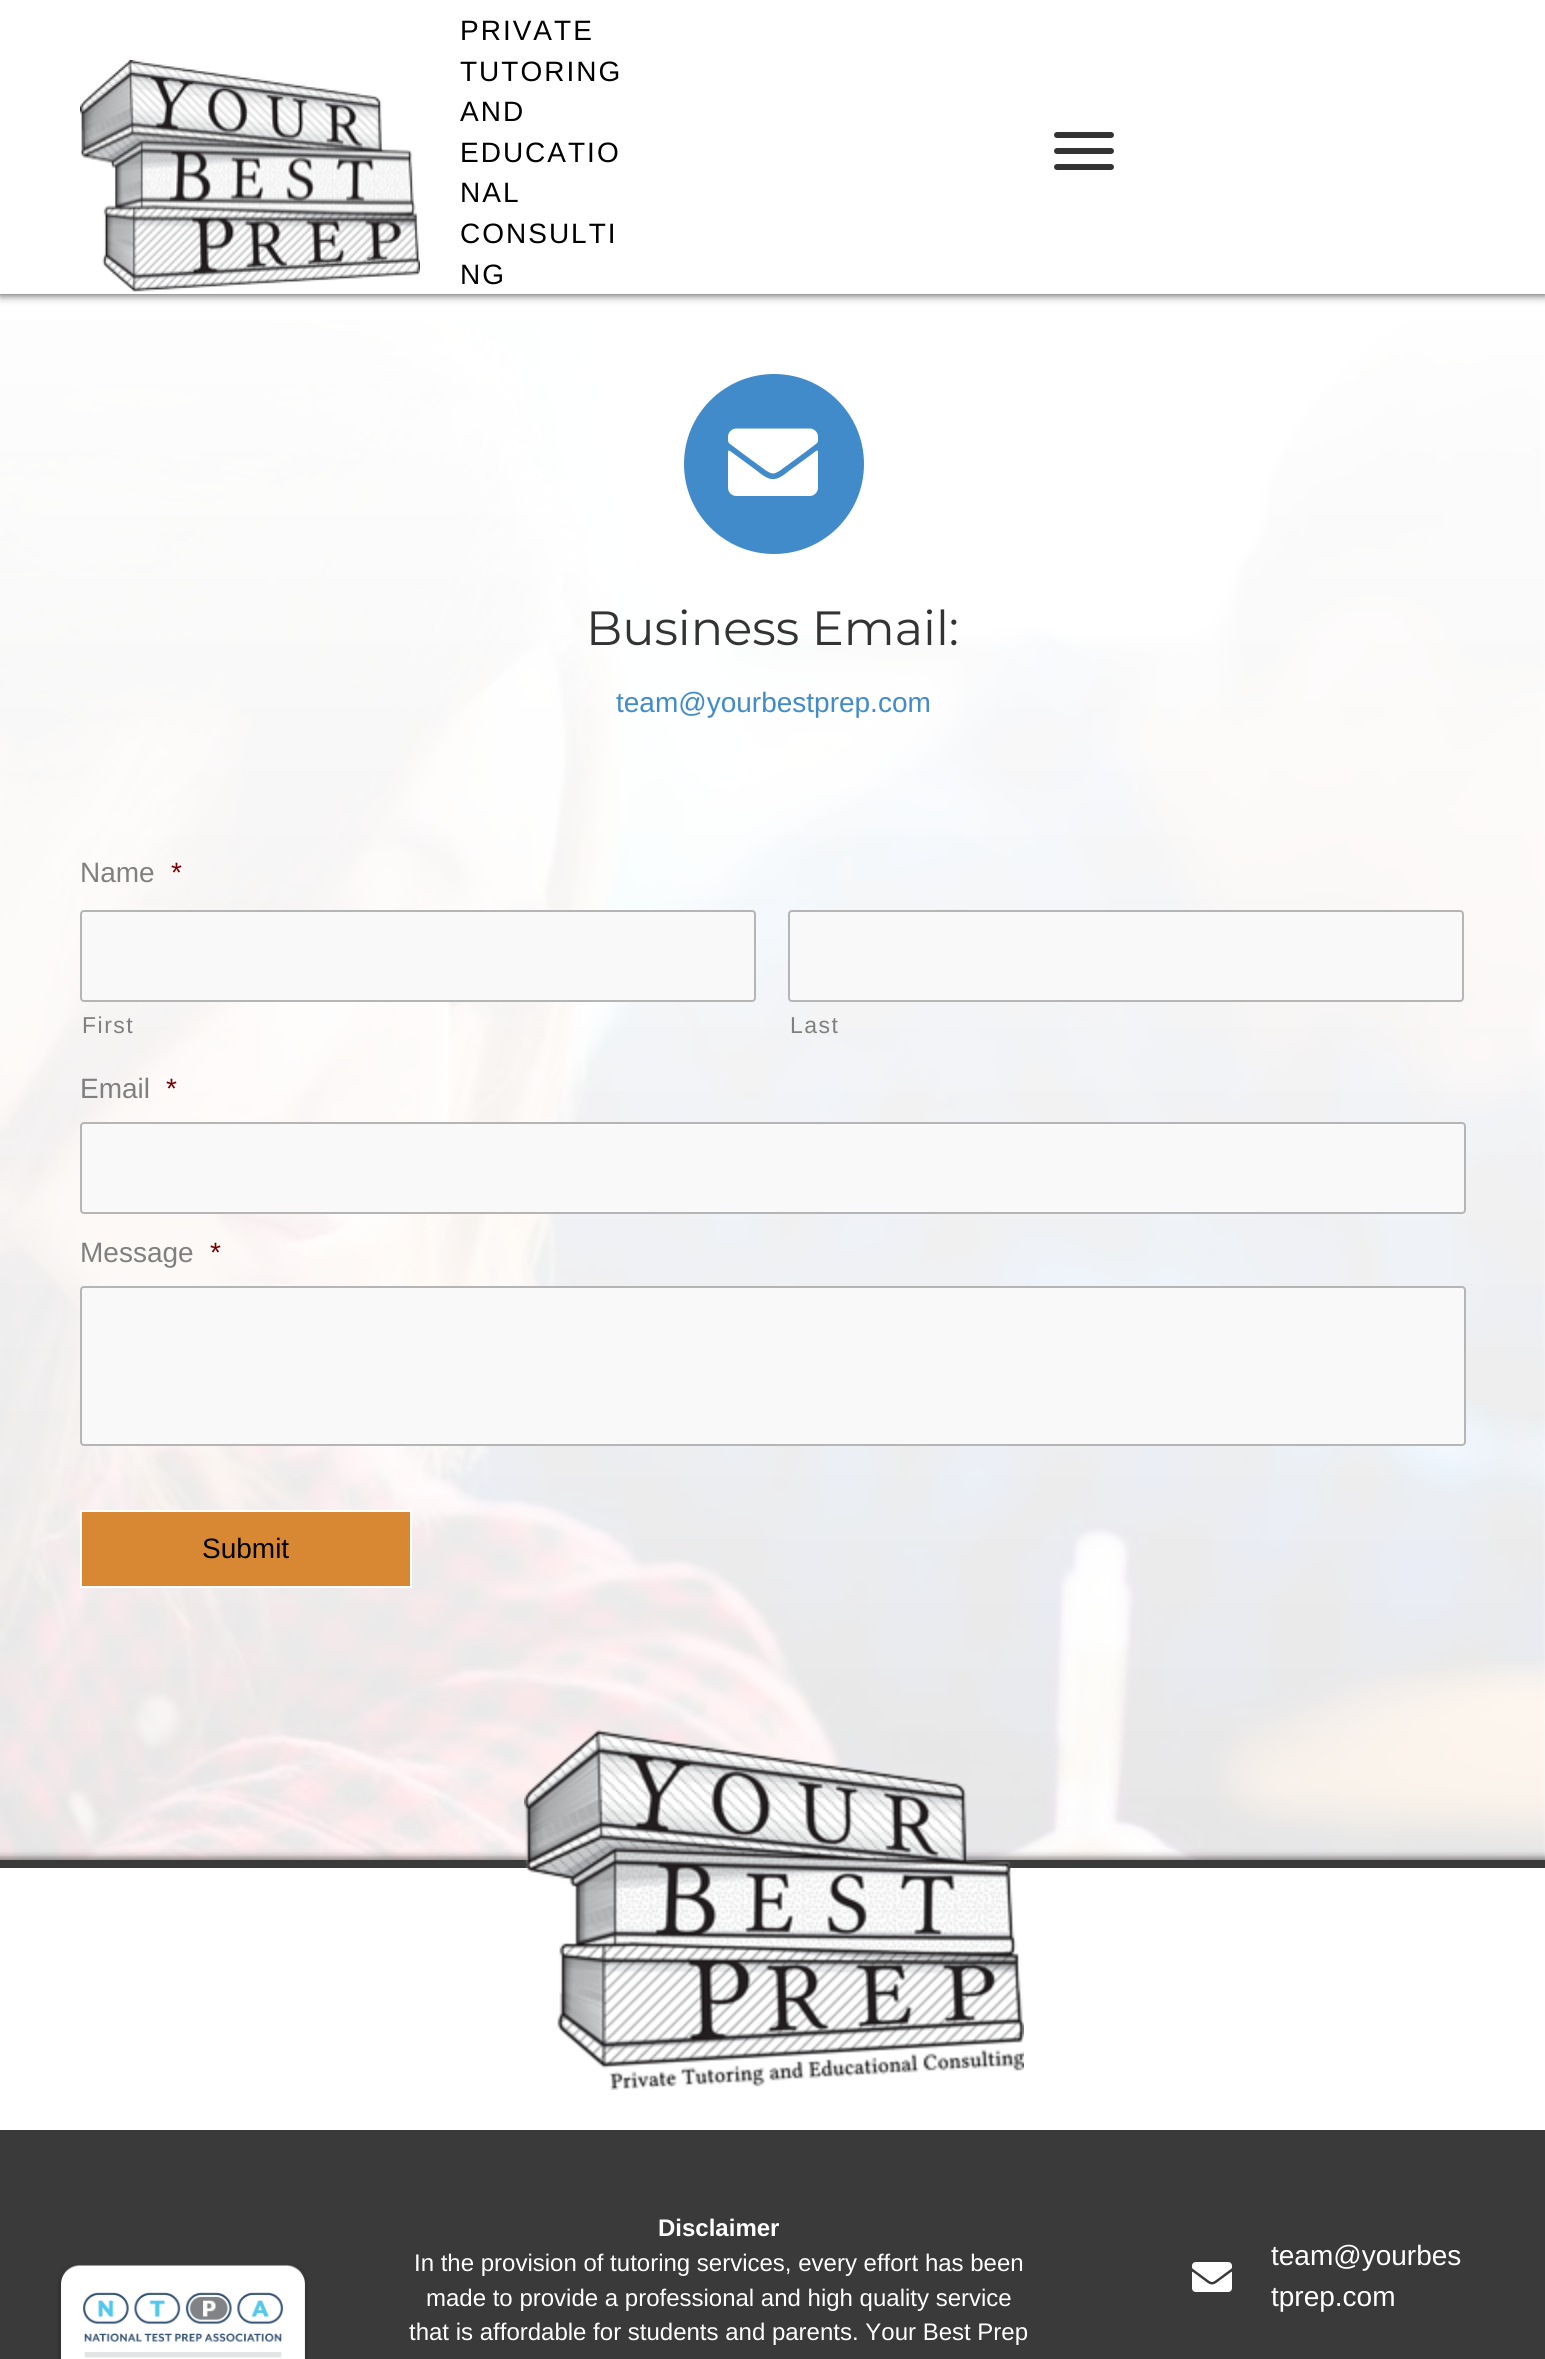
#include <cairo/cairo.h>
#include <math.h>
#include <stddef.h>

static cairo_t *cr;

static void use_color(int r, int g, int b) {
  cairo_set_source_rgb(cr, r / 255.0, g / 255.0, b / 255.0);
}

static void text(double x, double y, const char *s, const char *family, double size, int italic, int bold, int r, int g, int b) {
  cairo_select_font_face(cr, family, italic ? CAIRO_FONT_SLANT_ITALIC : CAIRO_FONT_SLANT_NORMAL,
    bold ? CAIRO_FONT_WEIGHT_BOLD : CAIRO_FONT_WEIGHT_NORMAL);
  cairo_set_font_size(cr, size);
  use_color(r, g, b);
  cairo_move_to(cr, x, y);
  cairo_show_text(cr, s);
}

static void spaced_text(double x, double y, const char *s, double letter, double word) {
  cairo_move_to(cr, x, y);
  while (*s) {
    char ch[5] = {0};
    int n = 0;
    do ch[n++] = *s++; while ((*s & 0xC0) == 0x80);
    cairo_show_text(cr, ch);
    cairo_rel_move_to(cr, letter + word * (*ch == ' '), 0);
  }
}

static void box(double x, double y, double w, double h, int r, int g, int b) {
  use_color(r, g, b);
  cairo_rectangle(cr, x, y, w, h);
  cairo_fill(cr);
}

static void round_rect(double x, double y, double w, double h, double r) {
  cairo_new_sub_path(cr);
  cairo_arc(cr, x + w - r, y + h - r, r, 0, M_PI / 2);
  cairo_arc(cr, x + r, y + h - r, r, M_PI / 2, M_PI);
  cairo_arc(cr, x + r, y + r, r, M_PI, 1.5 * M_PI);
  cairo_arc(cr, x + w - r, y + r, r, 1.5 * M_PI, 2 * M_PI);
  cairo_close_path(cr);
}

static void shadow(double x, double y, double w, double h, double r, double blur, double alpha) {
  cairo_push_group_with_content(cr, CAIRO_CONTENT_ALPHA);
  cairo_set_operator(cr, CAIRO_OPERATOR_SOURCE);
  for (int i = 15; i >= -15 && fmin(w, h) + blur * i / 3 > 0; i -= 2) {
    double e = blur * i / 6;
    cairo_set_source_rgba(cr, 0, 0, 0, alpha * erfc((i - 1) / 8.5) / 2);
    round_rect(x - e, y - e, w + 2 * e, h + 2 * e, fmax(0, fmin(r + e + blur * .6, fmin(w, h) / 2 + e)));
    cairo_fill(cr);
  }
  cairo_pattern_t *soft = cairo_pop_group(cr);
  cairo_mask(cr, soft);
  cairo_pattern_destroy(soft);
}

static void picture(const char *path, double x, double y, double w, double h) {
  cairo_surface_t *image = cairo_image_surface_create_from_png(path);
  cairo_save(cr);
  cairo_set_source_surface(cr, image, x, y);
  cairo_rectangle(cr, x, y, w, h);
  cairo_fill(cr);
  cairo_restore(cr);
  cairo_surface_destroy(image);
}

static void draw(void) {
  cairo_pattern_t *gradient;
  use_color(255, 255, 255);
  cairo_paint(cr);
  use_color(51, 51, 51);
  shadow(0, 0, 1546, 294, 0, 5, 1);
  box(0, 0, 1545, 294, 255, 255, 255);
  picture("img_01.png", 80, 60, 340, 232);
  use_color(51, 51, 51);
  round_rect(1054, 148, 60, 6, 3);
  cairo_fill(cr);
  round_rect(1054, 132, 60, 6, 3);
  cairo_fill(cr);
  round_rect(1054, 164, 60, 6, 3);
  cairo_fill(cr);
  picture("img_02.png", 0, 320, 1545, 1540);
  gradient = cairo_pattern_create_linear(773, 224, 773, 1860);
  cairo_pattern_add_color_stop_rgba(gradient, 0, 1, 1, 1, 1);
  cairo_pattern_add_color_stop_rgba(gradient, 1, 1, 1, 1, 0.9);
  cairo_set_source(cr, gradient);
  cairo_pattern_destroy(gradient);
  cairo_rectangle(cr, 0, 320, 1545, 1540);
  cairo_fill(cr);
  use_color(66, 139, 202);
  cairo_arc(cr, 774, 464, 90, 0, 2 * M_PI);
  cairo_fill(cr);
  picture("img_03.png", 728, 428, 90, 68);
  use_color(249, 249, 249);
  round_rect(81, 911, 674, 90, 3);
  cairo_fill_preserve(cr);
  use_color(181, 181, 181);
  cairo_stroke(cr);
  use_color(249, 249, 249);
  round_rect(789, 911, 674, 90, 3);
  cairo_fill_preserve(cr);
  use_color(181, 181, 181);
  cairo_stroke(cr);
  use_color(249, 249, 249);
  round_rect(81, 1123, 1384, 90, 3);
  cairo_fill_preserve(cr);
  use_color(181, 181, 181);
  cairo_stroke(cr);
  use_color(249, 249, 249);
  round_rect(81, 1287, 1384, 158, 3);
  cairo_fill_preserve(cr);
  use_color(181, 181, 181);
  cairo_stroke(cr);
  use_color(216, 136, 50);
  cairo_rectangle(cr, 81, 1511, 330, 76);
  cairo_fill_preserve(cr);
  use_color(255, 255, 255);
  cairo_stroke(cr);
  use_color(7, 0, 0);
  shadow(-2, 1858, 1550, 276, 0, 4, 0.54);
  box(0, 1868, 1545, 262, 255, 255, 255);
  box(0, 1860, 1545, 8, 58, 58, 58);
  box(0, 2130, 1545, 229, 58, 58, 58);
  picture("img_04.png", 524, 1729, 500, 361);
  picture("img_05.png", 57, 2264, 251, 95);
  picture("img_06.png", 1192, 2262, 40, 30);
  cairo_select_font_face(cr, "Liberation Sans", CAIRO_FONT_SLANT_NORMAL, CAIRO_FONT_WEIGHT_NORMAL);
  cairo_set_font_size(cr, 28);
  use_color(0, 0, 0);
  spaced_text(460, 40, "PRIVATE", 2, 0);
  spaced_text(460, 81, "TUTORING", 2, 0);
  spaced_text(460, 121, "AND", 2, 0);
  spaced_text(460, 162, "EDUCATIO", 2, 0);
  spaced_text(460, 202, "NAL", 2, 0);
  spaced_text(460, 243, "CONSULTI", 2, 0);
  spaced_text(460, 284, "NG", 2, 0);
  text(586, 645, "Business Email:", "Montserrat Thin", 48, 0, 0, 51, 51, 51);
  text(616, 712, "team@yourbestprep.com", "Liberation Sans", 28, 0, 0, 66, 139, 202);
  text(80, 882, "Name", "Liberation Sans", 28, 0, 0, 128, 128, 128);
  text(171, 882, "*", "Liberation Sans", 28, 0, 0, 121, 0, 0);
  cairo_set_font_size(cr, 23);
  use_color(128, 128, 128);
  spaced_text(82, 1033, "First", 1.5, 0);
  spaced_text(790, 1033, "Last", 1.5, 0);
  text(80, 1098, "Email", "Liberation Sans", 28, 0, 0, 128, 128, 128);
  text(166, 1098, "*", "Liberation Sans", 28, 0, 0, 121, 0, 0);
  text(80, 1262, "Message", "Liberation Sans", 28, 0, 0, 128, 128, 128);
  text(210, 1262, "*", "Liberation Sans", 28, 0, 0, 121, 0, 0);
  text(202, 1558, "Submit", "Liberation Sans", 28, 0, 0, 0, 0, 0);
  text(658, 2236, "Disclaimer", "Liberation Sans", 24, 0, 1, 255, 255, 255);
  text(414, 2271, "In the provision of tutoring services, every effort has been", "Liberation Sans", 24, 0, 0, 255, 255, 255);
  text(426, 2306, "made to provide a professional and high quality service", "Liberation Sans", 24, 0, 0, 255, 255, 255);
  text(409, 2340, "that is affordable for students and parents. Your Best Prep", "Liberation Sans", 24, 0, 0, 255, 255, 255);
  text(1271, 2265, "team@yourbes", "Liberation Sans", 28, 0, 0, 255, 255, 255);
  text(1271, 2306, "tprep.com", "Liberation Sans", 28, 0, 0, 255, 255, 255);
}

int main(void) {
  cairo_surface_t *surface = cairo_image_surface_create(CAIRO_FORMAT_RGB24, 1545, 2359);
  cr = cairo_create(surface);
  cairo_font_options_t *options = cairo_font_options_create();
  cairo_font_options_set_hint_metrics(options, CAIRO_HINT_METRICS_OFF);
  cairo_font_options_set_hint_style(options, CAIRO_HINT_STYLE_NONE);
  cairo_set_font_options(cr, options);
  cairo_set_miter_limit(cr, 4);
  draw();
  cairo_surface_write_to_png(surface, "out.png");
  cairo_font_options_destroy(options);
  cairo_destroy(cr);
  cairo_surface_destroy(surface);
  return 0;
}
